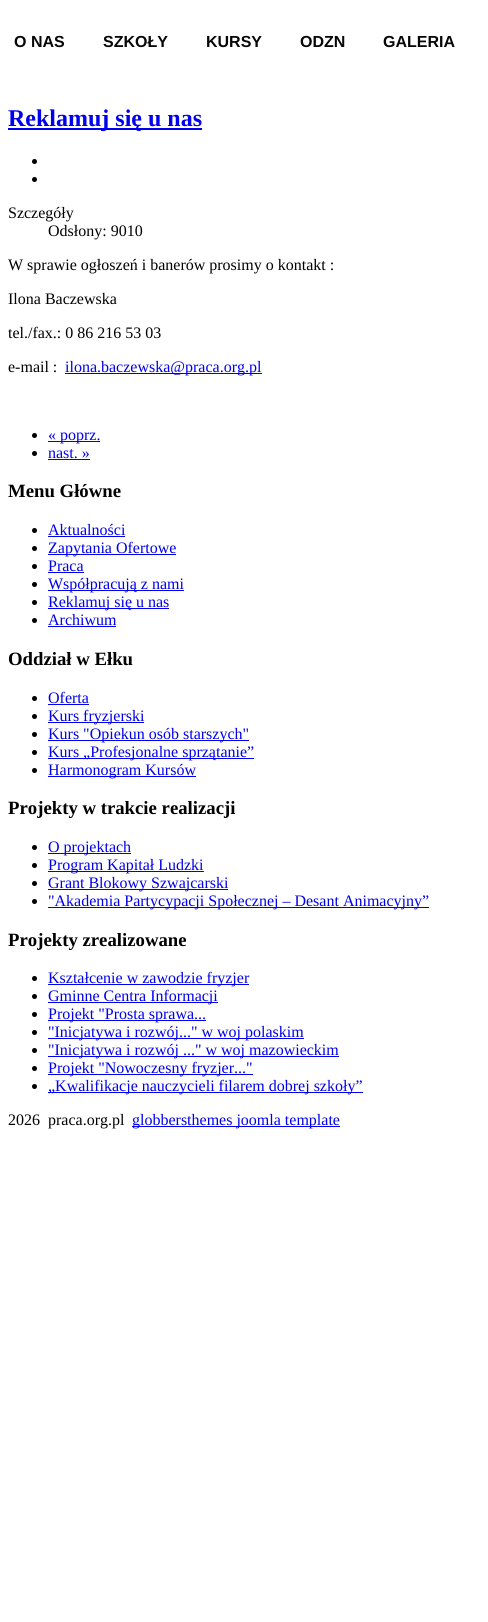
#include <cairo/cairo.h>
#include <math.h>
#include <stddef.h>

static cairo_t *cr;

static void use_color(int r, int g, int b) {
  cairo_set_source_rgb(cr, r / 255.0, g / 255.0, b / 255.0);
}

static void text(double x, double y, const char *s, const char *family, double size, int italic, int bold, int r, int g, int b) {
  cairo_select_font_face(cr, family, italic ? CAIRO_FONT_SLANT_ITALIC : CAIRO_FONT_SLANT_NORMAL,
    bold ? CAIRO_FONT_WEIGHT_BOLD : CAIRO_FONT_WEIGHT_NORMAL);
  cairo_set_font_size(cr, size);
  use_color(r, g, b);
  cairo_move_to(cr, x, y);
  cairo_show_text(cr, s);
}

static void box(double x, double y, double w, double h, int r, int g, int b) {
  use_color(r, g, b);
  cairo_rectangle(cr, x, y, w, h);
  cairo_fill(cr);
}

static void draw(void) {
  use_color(255, 255, 255);
  cairo_paint(cr);
  box(8, 128, 194, 2, 0, 0, 238);
  use_color(0, 0, 0);
  cairo_arc(cr, 34.5, 161.5, 2.5, 0, 2 * M_PI);
  cairo_fill(cr);
  cairo_arc(cr, 34.5, 179.5, 2.5, 0, 2 * M_PI);
  cairo_fill(cr);
  box(65, 373, 197, 1, 0, 0, 238);
  use_color(0, 0, 0);
  cairo_arc(cr, 34.5, 435.5, 2.5, 0, 2 * M_PI);
  cairo_fill(cr);
  box(48, 441, 52, 1, 0, 0, 238);
  use_color(0, 0, 0);
  cairo_arc(cr, 34.5, 453.5, 2.5, 0, 2 * M_PI);
  cairo_fill(cr);
  box(48, 459, 42, 1, 0, 0, 238);
  use_color(0, 0, 0);
  cairo_arc(cr, 34.5, 530.5, 2.5, 0, 2 * M_PI);
  cairo_fill(cr);
  box(48, 536, 77, 1, 0, 0, 238);
  use_color(0, 0, 0);
  cairo_arc(cr, 34.5, 548.5, 2.5, 0, 2 * M_PI);
  cairo_fill(cr);
  box(48, 554, 128, 1, 0, 0, 238);
  use_color(0, 0, 0);
  cairo_arc(cr, 34.5, 566.5, 2.5, 0, 2 * M_PI);
  cairo_fill(cr);
  box(48, 572, 36, 1, 0, 0, 238);
  use_color(0, 0, 0);
  cairo_arc(cr, 34.5, 584.5, 2.5, 0, 2 * M_PI);
  cairo_fill(cr);
  box(48, 590, 136, 1, 0, 0, 238);
  use_color(0, 0, 0);
  cairo_arc(cr, 34.5, 602.5, 2.5, 0, 2 * M_PI);
  cairo_fill(cr);
  box(48, 608, 121, 1, 0, 0, 238);
  use_color(0, 0, 0);
  cairo_arc(cr, 34.5, 620.5, 2.5, 0, 2 * M_PI);
  cairo_fill(cr);
  box(48, 626, 68, 1, 0, 0, 238);
  use_color(0, 0, 0);
  cairo_arc(cr, 34.5, 698.5, 2.5, 0, 2 * M_PI);
  cairo_fill(cr);
  box(48, 704, 41, 1, 0, 0, 238);
  use_color(0, 0, 0);
  cairo_arc(cr, 34.5, 716.5, 2.5, 0, 2 * M_PI);
  cairo_fill(cr);
  box(48, 722, 96, 1, 0, 0, 238);
  use_color(0, 0, 0);
  cairo_arc(cr, 34.5, 734.5, 2.5, 0, 2 * M_PI);
  cairo_fill(cr);
  box(48, 740, 201, 1, 0, 0, 238);
  use_color(0, 0, 0);
  cairo_arc(cr, 34.5, 752.5, 2.5, 0, 2 * M_PI);
  cairo_fill(cr);
  box(48, 758, 206, 1, 0, 0, 238);
  use_color(0, 0, 0);
  cairo_arc(cr, 34.5, 770.5, 2.5, 0, 2 * M_PI);
  cairo_fill(cr);
  box(48, 776, 148, 1, 0, 0, 238);
  use_color(0, 0, 0);
  cairo_arc(cr, 34.5, 847.5, 2.5, 0, 2 * M_PI);
  cairo_fill(cr);
  box(48, 853, 83, 1, 0, 0, 238);
  use_color(0, 0, 0);
  cairo_arc(cr, 34.5, 865.5, 2.5, 0, 2 * M_PI);
  cairo_fill(cr);
  box(48, 871, 156, 1, 0, 0, 238);
  use_color(0, 0, 0);
  cairo_arc(cr, 34.5, 883.5, 2.5, 0, 2 * M_PI);
  cairo_fill(cr);
  box(48, 889, 180, 1, 0, 0, 238);
  use_color(0, 0, 0);
  cairo_arc(cr, 34.5, 901.5, 2.5, 0, 2 * M_PI);
  cairo_fill(cr);
  box(48, 907, 381, 1, 0, 0, 238);
  use_color(0, 0, 0);
  cairo_arc(cr, 34.5, 978.5, 2.5, 0, 2 * M_PI);
  cairo_fill(cr);
  box(48, 984, 201, 1, 0, 0, 238);
  use_color(0, 0, 0);
  cairo_arc(cr, 34.5, 996.5, 2.5, 0, 2 * M_PI);
  cairo_fill(cr);
  box(48, 1002, 170, 1, 0, 0, 238);
  use_color(0, 0, 0);
  cairo_arc(cr, 34.5, 1014.5, 2.5, 0, 2 * M_PI);
  cairo_fill(cr);
  box(48, 1020, 158, 1, 0, 0, 238);
  use_color(0, 0, 0);
  cairo_arc(cr, 34.5, 1032.5, 2.5, 0, 2 * M_PI);
  cairo_fill(cr);
  box(48, 1038, 256, 1, 0, 0, 238);
  use_color(0, 0, 0);
  cairo_arc(cr, 34.5, 1050.5, 2.5, 0, 2 * M_PI);
  cairo_fill(cr);
  box(48, 1056, 291, 1, 0, 0, 238);
  use_color(0, 0, 0);
  cairo_arc(cr, 34.5, 1068.5, 2.5, 0, 2 * M_PI);
  cairo_fill(cr);
  box(48, 1074, 205, 1, 0, 0, 238);
  use_color(0, 0, 0);
  cairo_arc(cr, 34.5, 1086.5, 2.5, 0, 2 * M_PI);
  cairo_fill(cr);
  box(48, 1092, 315, 1, 0, 0, 238);
  box(132, 1126, 208, 1, 0, 0, 238);
  text(14, 47, "O NAS", "Liberation Sans", 16, 0, 1, 7, 7, 8);
  text(103, 47, "SZKOŁY", "Liberation Sans", 16, 0, 1, 7, 7, 8);
  text(206, 47, "KURSY", "Liberation Sans", 16, 0, 1, 7, 7, 8);
  text(300, 47, "ODZN", "Liberation Sans", 16, 0, 1, 7, 7, 8);
  text(383, 47, "GALERIA", "Liberation Sans", 16, 0, 1, 7, 7, 8);
  text(8, 126, "Reklamuj się u nas", "Liberation Serif", 24, 0, 1, 0, 0, 238);
  text(8, 218, "Szczegóły", "Liberation Serif", 16, 0, 0, 0, 0, 0);
  text(48, 236, "Odsłony: 9010", "Liberation Serif", 16, 0, 0, 0, 0, 0);
  text(8, 270, "W sprawie ogłoszeń i banerów prosimy o kontakt :", "Liberation Serif", 16, 0, 0, 0, 0, 0);
  text(8, 304, "Ilona Baczewska", "Liberation Serif", 16, 0, 0, 0, 0, 0);
  text(8, 338, "tel./fax.: 0 86 216 53 03", "Liberation Serif", 16, 0, 0, 0, 0, 0);
  text(8, 372, "e-mail :", "Liberation Serif", 16, 0, 0, 0, 0, 0);
  text(65, 372, "ilona.baczewska@praca.org.pl", "Liberation Serif", 16, 0, 0, 0, 0, 238);
  text(48, 440, "« poprz.", "Liberation Serif", 16, 0, 0, 0, 0, 238);
  text(48, 458, "nast. »", "Liberation Serif", 16, 0, 0, 0, 0, 238);
  text(8, 497, "Menu Główne", "Liberation Serif", 18.75, 0, 1, 0, 0, 0);
  text(48, 535, "Aktualności", "Liberation Serif", 16, 0, 0, 0, 0, 238);
  text(48, 553, "Zapytania Ofertowe", "Liberation Serif", 16, 0, 0, 0, 0, 238);
  text(48, 571, "Praca", "Liberation Serif", 16, 0, 0, 0, 0, 238);
  text(48, 589, "Współpracują z nami", "Liberation Serif", 16, 0, 0, 0, 0, 238);
  text(48, 607, "Reklamuj się u nas", "Liberation Serif", 16, 0, 0, 0, 0, 238);
  text(48, 625, "Archiwum", "Liberation Serif", 16, 0, 0, 0, 0, 238);
  text(8, 665, "Oddział w Ełku", "Liberation Serif", 18.75, 0, 1, 0, 0, 0);
  text(48, 703, "Oferta", "Liberation Serif", 16, 0, 0, 0, 0, 238);
  text(48, 721, "Kurs fryzjerski", "Liberation Serif", 16, 0, 0, 0, 0, 238);
  text(48, 739, "Kurs \"Opiekun osób starszych\"", "Liberation Serif", 16, 0, 0, 0, 0, 238);
  text(48, 757, "Kurs „Profesjonalne sprzątanie”", "Liberation Serif", 16, 0, 0, 0, 0, 238);
  text(48, 775, "Harmonogram Kursów", "Liberation Serif", 16, 0, 0, 0, 0, 238);
  text(8, 814, "Projekty w trakcie realizacji", "Liberation Serif", 18.75, 0, 1, 0, 0, 0);
  text(48, 852, "O projektach", "Liberation Serif", 16, 0, 0, 0, 0, 238);
  text(48, 870, "Program Kapitał Ludzki", "Liberation Serif", 16, 0, 0, 0, 0, 238);
  text(48, 888, "Grant Blokowy Szwajcarski", "Liberation Serif", 16, 0, 0, 0, 0, 238);
  text(48, 906, "\"Akademia Partycypacji Społecznej – Desant Animacyjny”", "Liberation Serif", 16, 0, 0, 0, 0, 238);
  text(8, 946, "Projekty zrealizowane", "Liberation Serif", 18.75, 0, 1, 0, 0, 0);
  text(48, 983, "Kształcenie w zawodzie fryzjer", "Liberation Serif", 16, 0, 0, 0, 0, 238);
  text(48, 1001, "Gminne Centra Informacji", "Liberation Serif", 16, 0, 0, 0, 0, 238);
  text(48, 1019, "Projekt \"Prosta sprawa...", "Liberation Serif", 16, 0, 0, 0, 0, 238);
  text(48, 1037, "\"Inicjatywa i rozwój...\" w woj polaskim", "Liberation Serif", 16, 0, 0, 0, 0, 238);
  text(48, 1055, "\"Inicjatywa i rozwój ...\" w woj mazowieckim", "Liberation Serif", 16, 0, 0, 0, 0, 238);
  text(48, 1073, "Projekt \"Nowoczesny fryzjer...\"", "Liberation Serif", 16, 0, 0, 0, 0, 238);
  text(48, 1091, "„Kwalifikacje nauczycieli filarem dobrej szkoły”", "Liberation Serif", 16, 0, 0, 0, 0, 238);
  text(8, 1125, "2026  praca.org.pl", "Liberation Serif", 16, 0, 0, 0, 0, 0);
  text(132, 1125, "globbersthemes joomla template", "Liberation Serif", 16, 0, 0, 0, 0, 238);
}

int main(void) {
  cairo_surface_t *surface = cairo_image_surface_create(CAIRO_FORMAT_RGB24, 488, 1622);
  cr = cairo_create(surface);
  cairo_font_options_t *options = cairo_font_options_create();
  cairo_font_options_set_hint_metrics(options, CAIRO_HINT_METRICS_OFF);
  cairo_font_options_set_hint_style(options, CAIRO_HINT_STYLE_NONE);
  cairo_set_font_options(cr, options);
  cairo_set_miter_limit(cr, 4);
  draw();
  cairo_surface_write_to_png(surface, "out.png");
  cairo_font_options_destroy(options);
  cairo_destroy(cr);
  cairo_surface_destroy(surface);
  return 0;
}
